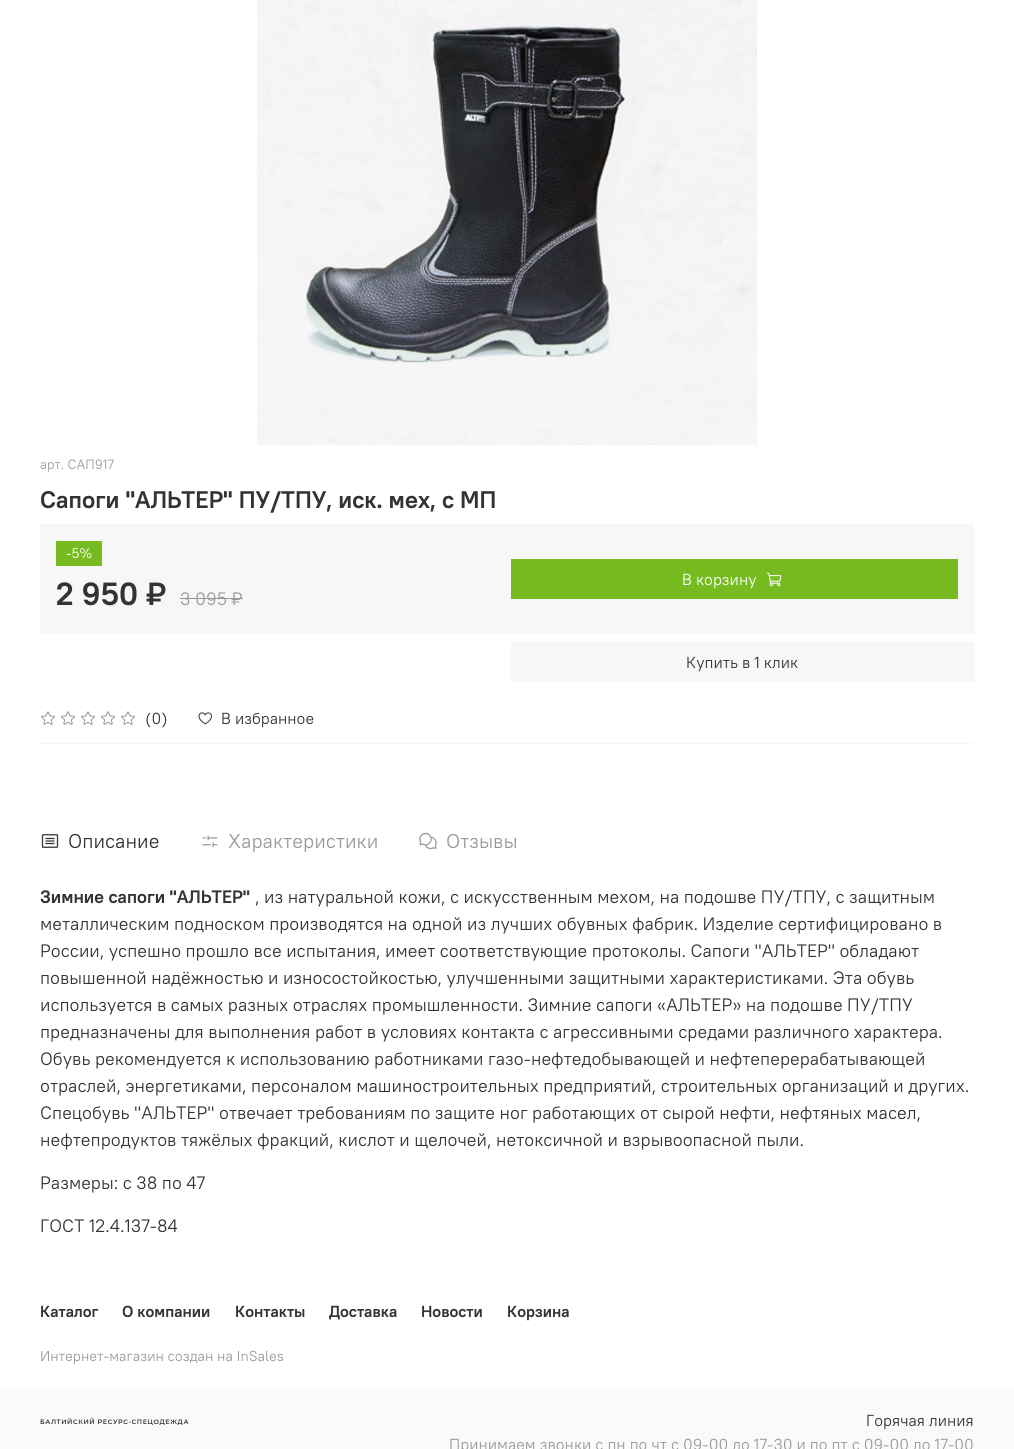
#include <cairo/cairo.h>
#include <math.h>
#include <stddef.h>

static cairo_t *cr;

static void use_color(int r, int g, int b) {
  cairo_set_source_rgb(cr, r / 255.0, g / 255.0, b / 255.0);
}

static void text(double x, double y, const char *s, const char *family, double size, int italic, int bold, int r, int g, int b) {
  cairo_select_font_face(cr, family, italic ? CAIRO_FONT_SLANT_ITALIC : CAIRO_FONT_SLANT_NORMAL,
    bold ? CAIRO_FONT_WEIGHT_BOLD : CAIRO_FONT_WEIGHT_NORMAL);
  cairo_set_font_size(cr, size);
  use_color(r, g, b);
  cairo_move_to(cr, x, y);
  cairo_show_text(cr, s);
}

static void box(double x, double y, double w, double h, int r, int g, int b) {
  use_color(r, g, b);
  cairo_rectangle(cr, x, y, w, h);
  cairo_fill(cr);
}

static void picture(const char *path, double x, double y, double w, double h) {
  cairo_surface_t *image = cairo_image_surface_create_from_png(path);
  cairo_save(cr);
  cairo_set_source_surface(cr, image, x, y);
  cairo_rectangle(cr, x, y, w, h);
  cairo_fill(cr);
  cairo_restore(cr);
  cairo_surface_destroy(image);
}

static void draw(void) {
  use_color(255, 255, 255);
  cairo_paint(cr);
  picture("img_01.png", 257, 0, 500, 445);
  box(40, 524, 934, 110, 247, 247, 247);
  box(56, 541, 46, 25, 118, 188, 33);
  box(180, 598, 63, 1, 153, 153, 153);
  box(511, 559, 447, 40, 118, 188, 33);
  picture("img_02.png", 766, 572, 16, 15);
  box(511, 642, 463, 40, 247, 247, 247);
  box(40, 743, 934, 1, 247, 247, 247);
  picture("img_03.png", 41, 711, 14, 14);
  picture("img_03.png", 61, 711, 14, 14);
  picture("img_03.png", 81, 711, 14, 14);
  picture("img_03.png", 101, 711, 14, 14);
  picture("img_03.png", 121, 711, 14, 14);
  picture("img_04.png", 198, 712, 14, 13);
  picture("img_05.png", 41, 834, 18, 14);
  picture("img_06.png", 202, 835, 16, 13);
  picture("img_07.png", 419, 832, 18, 18);
  box(0, 1388, 1014, 61, 250, 250, 250);
  picture("img_08.png", 40, 1418, 149, 7);
  text(40, 469, "арт. САП917", "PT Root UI", 13.5, 0, 0, 153, 153, 153);
  text(40, 508, "Сапоги \"АЛЬТЕР\" ПУ/ТПУ, иск. мех, с МП", "PT Root UI", 24, 0, 1, 51, 51, 51);
  text(66, 558, "-5%", "PT Root UI", 14, 0, 0, 255, 255, 255);
  text(56, 605, "2 950 ₽", "PT Root UI", 32, 0, 1, 51, 51, 51);
  text(180, 605, "3 095 ₽", "PT Root UI", 18, 0, 0, 153, 153, 153);
  text(682, 585, "В корзину", "PT Root UI", 16, 0, 0, 255, 255, 255);
  text(686, 668, "Купить в 1 клик", "PT Root UI", 16, 0, 0, 51, 51, 51);
  text(145, 724, "(0)", "PT Root UI", 16, 0, 0, 51, 51, 51);
  text(221, 724, "В избранное", "PT Root UI", 16, 0, 0, 51, 51, 51);
  text(68, 848, "Описание", "PT Root UI", 20, 0, 0, 51, 51, 51);
  text(228, 848, "Характеристики", "PT Root UI", 20, 0, 0, 153, 153, 153);
  text(446, 848, "Отзывы", "PT Root UI", 20, 0, 0, 153, 153, 153);
  text(40, 903, "Зимние сапоги \"АЛЬТЕР\"", "PT Root UI", 18, 0, 1, 51, 51, 51);
  text(255, 903, ", из натуральной кожи, с искусственным мехом, на подошве ПУ/ТПУ, с защитным", "PT Root UI", 18, 0, 0, 51, 51, 51);
  text(40, 930, "металлическим подноском производятся на одной из лучших обувных фабрик. Изделие сертифицировано в", "PT Root UI", 18, 0, 0, 51, 51, 51);
  text(40, 957, "России, успешно прошло все испытания, имеет соответствующие протоколы. Сапоги \"АЛЬТЕР\" обладают", "PT Root UI", 18, 0, 0, 51, 51, 51);
  text(40, 984, "повышенной надёжностью и износостойкостью, улучшенными защитными характеристиками. Эта обувь", "PT Root UI", 18, 0, 0, 51, 51, 51);
  text(40, 1011, "используется в самых разных отраслях промышленности. Зимние сапоги «АЛЬТЕР» на подошве ПУ/ТПУ", "PT Root UI", 18, 0, 0, 51, 51, 51);
  text(40, 1038, "предназначены для выполнения работ в условиях контакта с агрессивными средами различного характера.", "PT Root UI", 18, 0, 0, 51, 51, 51);
  text(40, 1065, "Обувь рекомендуется к использованию работниками газо-нефтедобывающей и нефтеперерабатывающей", "PT Root UI", 18, 0, 0, 51, 51, 51);
  text(40, 1092, "отраслей, энергетиками, персоналом машиностроительных предприятий, строительных организаций и других.", "PT Root UI", 18, 0, 0, 51, 51, 51);
  text(40, 1119, "Спецобувь \"АЛЬТЕР\" отвечает требованиям по защите ног работающих от сырой нефти, нефтяных масел,", "PT Root UI", 18, 0, 0, 51, 51, 51);
  text(40, 1146, "нефтепродуктов тяжёлых фракций, кислот и щелочей, нетоксичной и взрывоопасной пыли.", "PT Root UI", 18, 0, 0, 51, 51, 51);
  text(40, 1189, "Размеры: с 38 по 47", "PT Root UI", 18, 0, 0, 51, 51, 51);
  text(40, 1232, "ГОСТ 12.4.137-84", "PT Root UI", 18, 0, 0, 51, 51, 51);
  text(40, 1317, "Каталог", "PT Root UI", 16, 0, 1, 51, 51, 51);
  text(122, 1317, "О компании", "PT Root UI", 16, 0, 1, 51, 51, 51);
  text(235, 1317, "Контакты", "PT Root UI", 16, 0, 1, 51, 51, 51);
  text(329, 1317, "Доставка", "PT Root UI", 16, 0, 1, 51, 51, 51);
  text(421, 1317, "Новости", "PT Root UI", 16, 0, 1, 51, 51, 51);
  text(507, 1317, "Корзина", "PT Root UI", 16, 0, 1, 51, 51, 51);
  text(40, 1361, "Интернет-магазин создан на InSales", "PT Root UI", 14.4, 0, 0, 153, 153, 153);
  text(866, 1426, "Горячая линия", "PT Root UI", 16, 0, 0, 51, 51, 51);
  text(449, 1450, "Принимаем звонки с пн по чт с 09-00 до 17-30 и по пт с 09-00 до 17-00", "PT Root UI", 16, 0, 0, 153, 153, 153);
}

int main(void) {
  cairo_surface_t *surface = cairo_image_surface_create(CAIRO_FORMAT_RGB24, 1014, 1449);
  cr = cairo_create(surface);
  cairo_font_options_t *options = cairo_font_options_create();
  cairo_font_options_set_hint_metrics(options, CAIRO_HINT_METRICS_OFF);
  cairo_font_options_set_hint_style(options, CAIRO_HINT_STYLE_NONE);
  cairo_set_font_options(cr, options);
  cairo_set_miter_limit(cr, 4);
  draw();
  cairo_surface_write_to_png(surface, "out.png");
  cairo_font_options_destroy(options);
  cairo_destroy(cr);
  cairo_surface_destroy(surface);
  return 0;
}
